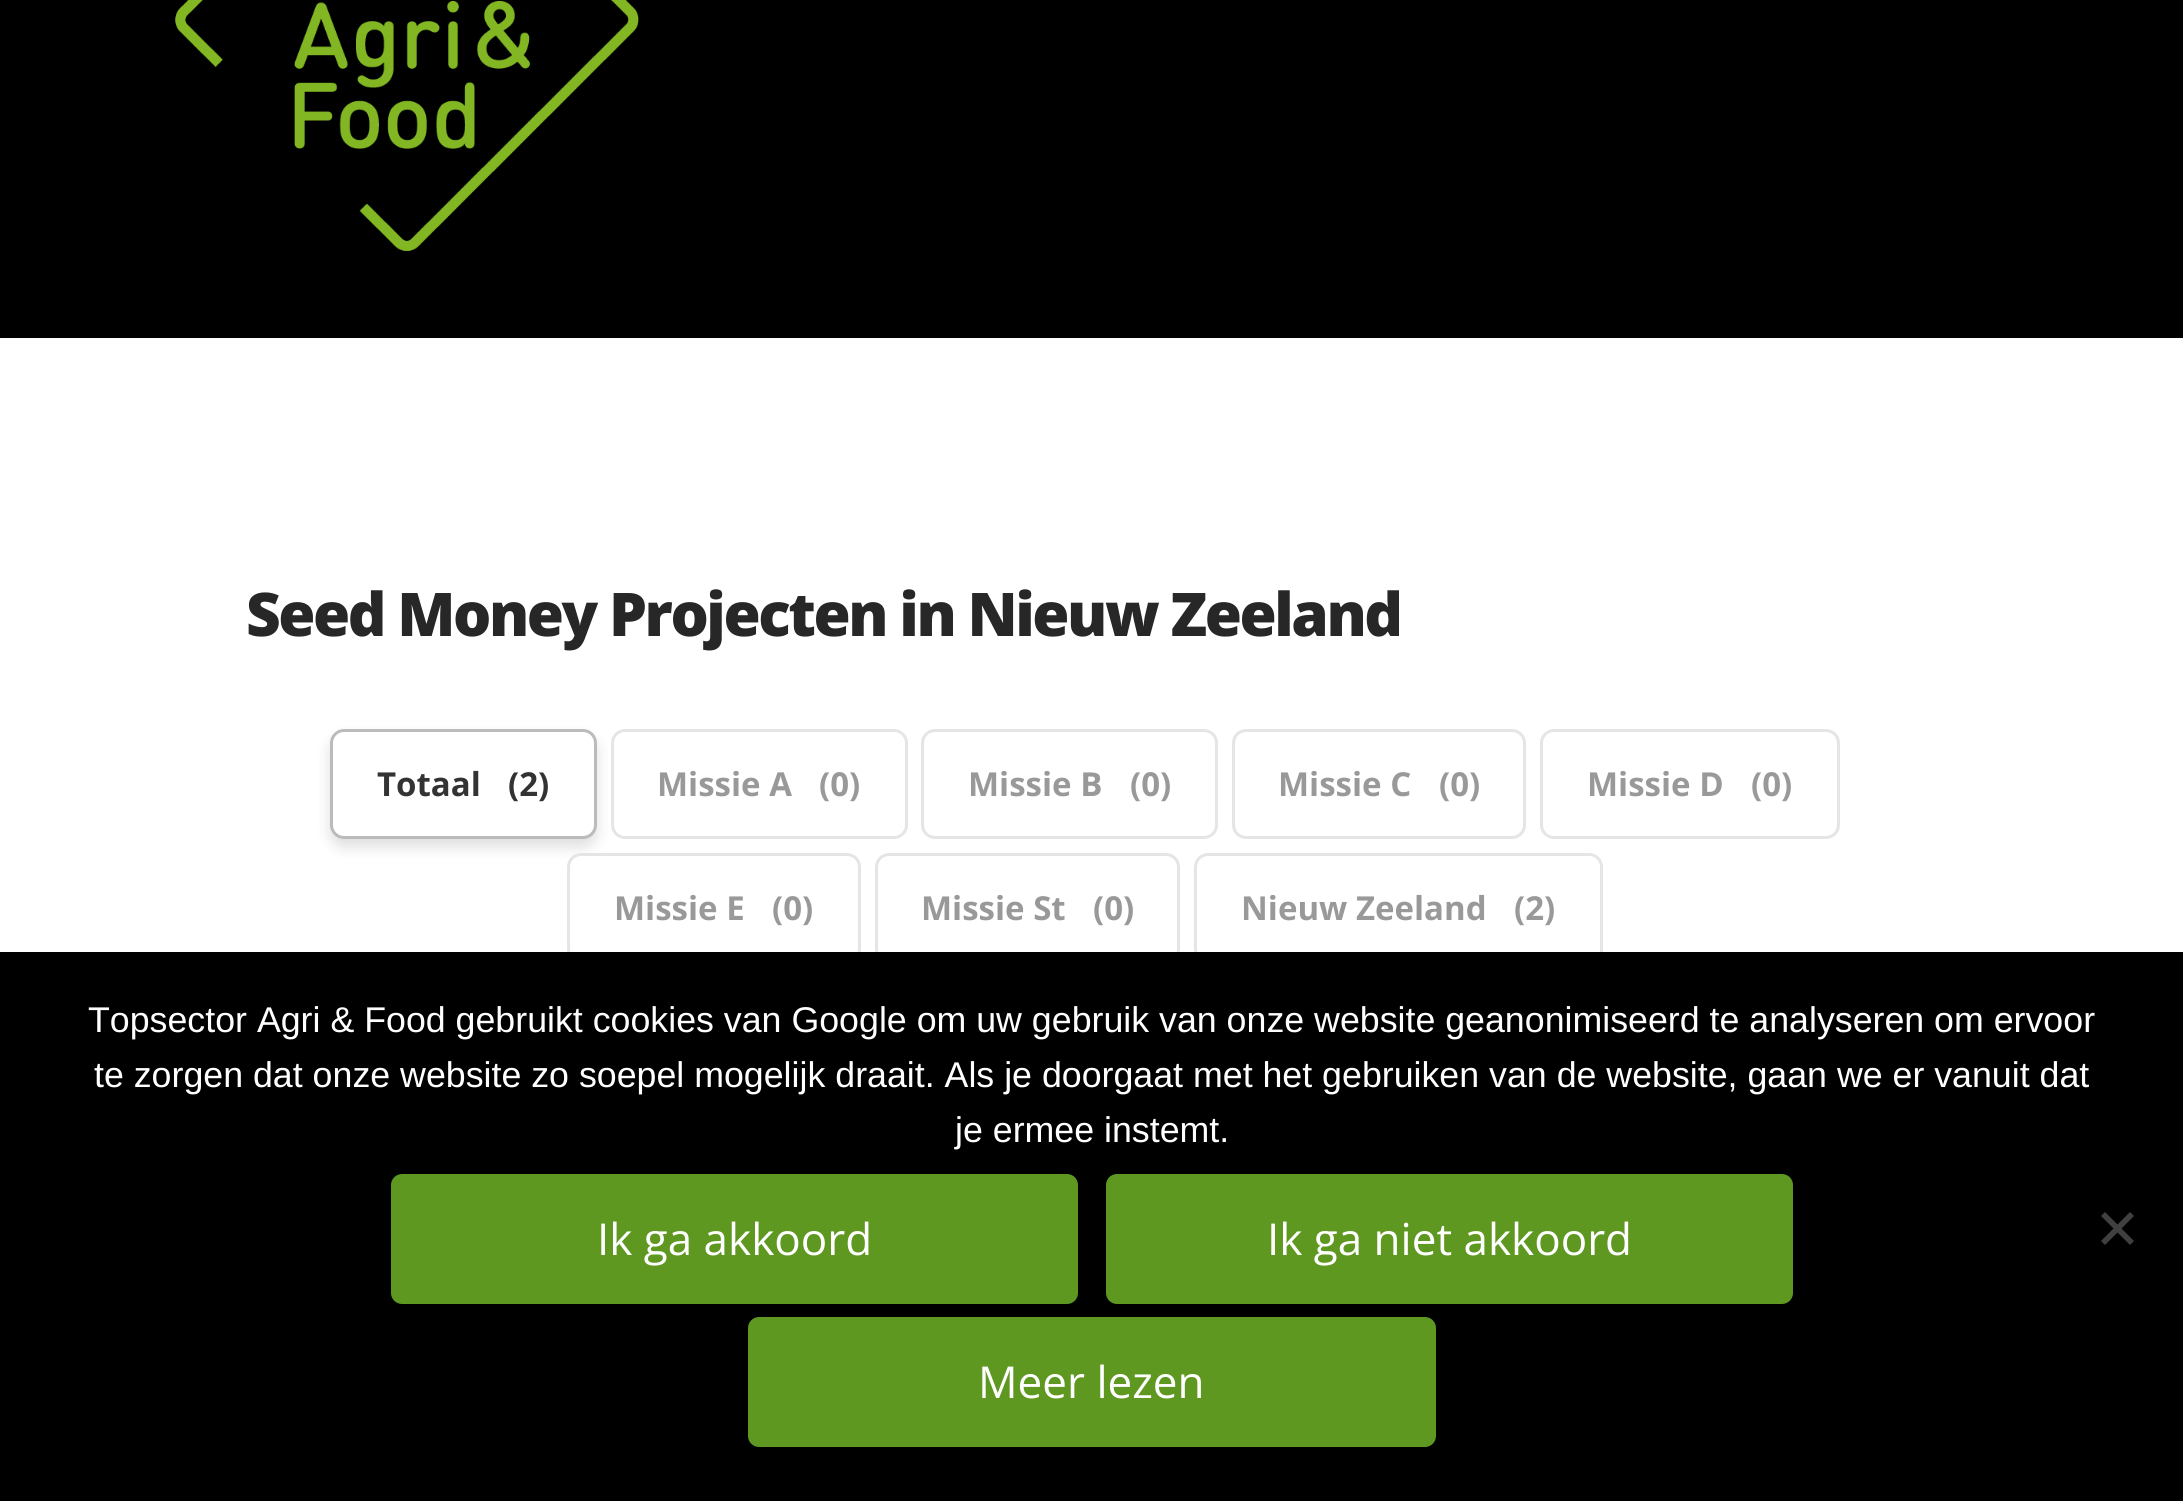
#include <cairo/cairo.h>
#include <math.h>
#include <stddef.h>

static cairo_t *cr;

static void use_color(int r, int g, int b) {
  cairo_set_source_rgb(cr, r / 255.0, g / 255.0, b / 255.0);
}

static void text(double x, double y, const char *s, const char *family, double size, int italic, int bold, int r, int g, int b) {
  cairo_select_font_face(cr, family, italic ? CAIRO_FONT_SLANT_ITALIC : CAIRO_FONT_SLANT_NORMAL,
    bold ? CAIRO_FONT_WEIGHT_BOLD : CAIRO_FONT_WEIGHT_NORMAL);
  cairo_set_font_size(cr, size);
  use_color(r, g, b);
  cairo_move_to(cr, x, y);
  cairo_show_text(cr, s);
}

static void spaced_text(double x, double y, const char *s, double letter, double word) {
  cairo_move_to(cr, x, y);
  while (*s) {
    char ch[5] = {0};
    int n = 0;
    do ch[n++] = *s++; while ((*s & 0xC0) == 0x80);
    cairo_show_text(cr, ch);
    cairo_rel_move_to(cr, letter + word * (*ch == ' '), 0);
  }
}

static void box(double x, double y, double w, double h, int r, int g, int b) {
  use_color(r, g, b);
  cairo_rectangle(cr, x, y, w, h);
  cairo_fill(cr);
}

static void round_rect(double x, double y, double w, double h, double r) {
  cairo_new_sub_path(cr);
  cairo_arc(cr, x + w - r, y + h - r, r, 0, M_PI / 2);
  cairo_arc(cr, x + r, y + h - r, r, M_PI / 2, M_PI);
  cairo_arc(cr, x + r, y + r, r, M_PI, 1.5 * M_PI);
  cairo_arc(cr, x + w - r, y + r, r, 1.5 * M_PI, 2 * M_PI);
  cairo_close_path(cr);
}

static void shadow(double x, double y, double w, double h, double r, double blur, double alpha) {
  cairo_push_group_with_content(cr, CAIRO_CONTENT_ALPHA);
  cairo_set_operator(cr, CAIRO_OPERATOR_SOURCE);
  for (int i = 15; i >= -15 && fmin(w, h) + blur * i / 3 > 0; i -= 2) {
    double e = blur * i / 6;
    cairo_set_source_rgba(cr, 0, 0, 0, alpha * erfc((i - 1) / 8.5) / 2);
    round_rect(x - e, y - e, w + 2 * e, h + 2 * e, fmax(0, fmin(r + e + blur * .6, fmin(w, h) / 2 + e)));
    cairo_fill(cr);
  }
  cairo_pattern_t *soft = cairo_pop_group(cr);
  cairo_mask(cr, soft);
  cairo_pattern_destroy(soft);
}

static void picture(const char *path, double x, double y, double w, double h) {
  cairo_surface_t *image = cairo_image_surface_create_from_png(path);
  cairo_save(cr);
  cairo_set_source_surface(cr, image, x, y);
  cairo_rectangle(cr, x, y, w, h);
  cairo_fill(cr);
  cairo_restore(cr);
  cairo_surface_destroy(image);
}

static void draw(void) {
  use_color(255, 255, 255);
  cairo_paint(cr);
  box(0, 0, 2183, 338, 0, 0, 0);
  picture("img_01.png", 175, 0, 464, 251);
  use_color(0, 0, 0);
  shadow(330, 737, 267, 110, 14, 7, 0.13);
  use_color(255, 255, 255);
  round_rect(331.5, 730.5, 264, 107, 12.5);
  cairo_fill_preserve(cr);
  use_color(187, 187, 187);
  cairo_set_line_width(cr, 3);
  cairo_stroke(cr);
  round_rect(612.5, 730.5, 294, 107, 12.5);
  use_color(229, 229, 229);
  cairo_stroke(cr);
  round_rect(922.5, 730.5, 294, 107, 12.5);
  cairo_stroke(cr);
  round_rect(1233.5, 730.5, 291, 107, 12.5);
  cairo_stroke(cr);
  round_rect(1541.5, 730.5, 297, 107, 12.5);
  cairo_stroke(cr);
  use_color(255, 255, 255);
  round_rect(568.5, 854.5, 291, 107, 12.5);
  cairo_fill_preserve(cr);
  use_color(229, 229, 229);
  cairo_stroke(cr);
  round_rect(876.5, 854.5, 302, 107, 12.5);
  cairo_stroke(cr);
  round_rect(1195.5, 854.5, 406, 107, 12.5);
  cairo_stroke(cr);
  box(0, 952, 2183, 549, 0, 0, 0);
  use_color(95, 152, 33);
  round_rect(392.5, 1175.5, 684, 127, 9.5);
  cairo_fill_preserve(cr);
  cairo_stroke(cr);
  round_rect(1107.5, 1175.5, 684, 127, 9.5);
  cairo_fill_preserve(cr);
  cairo_stroke(cr);
  round_rect(749.5, 1318.5, 685, 127, 9.5);
  cairo_fill_preserve(cr);
  cairo_stroke(cr);
  use_color(64, 64, 64);
  cairo_new_path(cr);
  cairo_move_to(cr, 2130, 1212);
  cairo_line_to(cr, 2134, 1216);
  cairo_line_to(cr, 2105, 1245);
  cairo_line_to(cr, 2101, 1241);
  cairo_close_path(cr);
  cairo_fill(cr);
  cairo_new_path(cr);
  cairo_move_to(cr, 2101, 1216);
  cairo_line_to(cr, 2105, 1212);
  cairo_line_to(cr, 2134, 1241);
  cairo_line_to(cr, 2130, 1245);
  cairo_close_path(cr);
  cairo_fill(cr);
  cairo_select_font_face(cr, "Open Sans ExtraBold", CAIRO_FONT_SLANT_NORMAL, CAIRO_FONT_WEIGHT_NORMAL);
  cairo_set_font_size(cr, 60.2);
  use_color(39, 39, 39);
  spaced_text(246, 636, "Seed Money Projecten in Nieuw Zeeland", -2.45, 0);
  text(377, 796, "Totaal", "Open Sans", 33, 0, 1, 51, 51, 51);
  text(508, 796, "(2)", "Open Sans", 33, 0, 1, 51, 51, 51);
  text(657, 796, "Missie A", "Open Sans", 33, 0, 1, 153, 153, 153);
  text(819, 796, "(0)", "Open Sans", 33, 0, 1, 153, 153, 153);
  text(968, 796, "Missie B", "Open Sans", 33, 0, 1, 153, 153, 153);
  text(1130, 796, "(0)", "Open Sans", 33, 0, 1, 153, 153, 153);
  text(1278, 796, "Missie C", "Open Sans", 33, 0, 1, 153, 153, 153);
  text(1439, 796, "(0)", "Open Sans", 33, 0, 1, 153, 153, 153);
  text(1587, 796, "Missie D", "Open Sans", 33, 0, 1, 153, 153, 153);
  text(1751, 796, "(0)", "Open Sans", 33, 0, 1, 153, 153, 153);
  text(614, 920, "Missie E", "Open Sans", 33, 0, 1, 153, 153, 153);
  text(772, 920, "(0)", "Open Sans", 33, 0, 1, 153, 153, 153);
  text(921, 920, "Missie St", "Open Sans", 33, 0, 1, 153, 153, 153);
  text(1093, 920, "(0)", "Open Sans", 33, 0, 1, 153, 153, 153);
  text(1241, 920, "Nieuw Zeeland", "Open Sans", 33, 0, 1, 153, 153, 153);
  text(1514, 920, "(2)", "Open Sans", 33, 0, 1, 153, 153, 153);
  text(88, 1032, "Topsector Agri & Food gebruikt cookies van Google om uw gebruik van onze website geanonimiseerd te analyseren om ervoor", "Liberation Sans", 35.75, 0, 0, 255, 255, 255);
  text(94, 1087, "te zorgen dat onze website zo soepel mogelijk draait. Als je doorgaat met het gebruiken van de website, gaan we er vanuit dat", "Liberation Sans", 35.75, 0, 0, 255, 255, 255);
  text(955, 1142, "je ermee instemt.", "Liberation Sans", 35.75, 0, 0, 255, 255, 255);
  text(597, 1255, "Ik ga akkoord", "Open Sans", 44, 0, 0, 255, 255, 255);
  text(1267, 1255, "Ik ga niet akkoord", "Open Sans", 44, 0, 0, 255, 255, 255);
  text(978, 1398, "Meer lezen", "Open Sans", 44, 0, 0, 255, 255, 255);
}

int main(void) {
  cairo_surface_t *surface = cairo_image_surface_create(CAIRO_FORMAT_RGB24, 2183, 1501);
  cr = cairo_create(surface);
  cairo_font_options_t *options = cairo_font_options_create();
  cairo_font_options_set_hint_metrics(options, CAIRO_HINT_METRICS_OFF);
  cairo_font_options_set_hint_style(options, CAIRO_HINT_STYLE_NONE);
  cairo_set_font_options(cr, options);
  cairo_set_miter_limit(cr, 4);
  draw();
  cairo_surface_write_to_png(surface, "out.png");
  cairo_font_options_destroy(options);
  cairo_destroy(cr);
  cairo_surface_destroy(surface);
  return 0;
}
